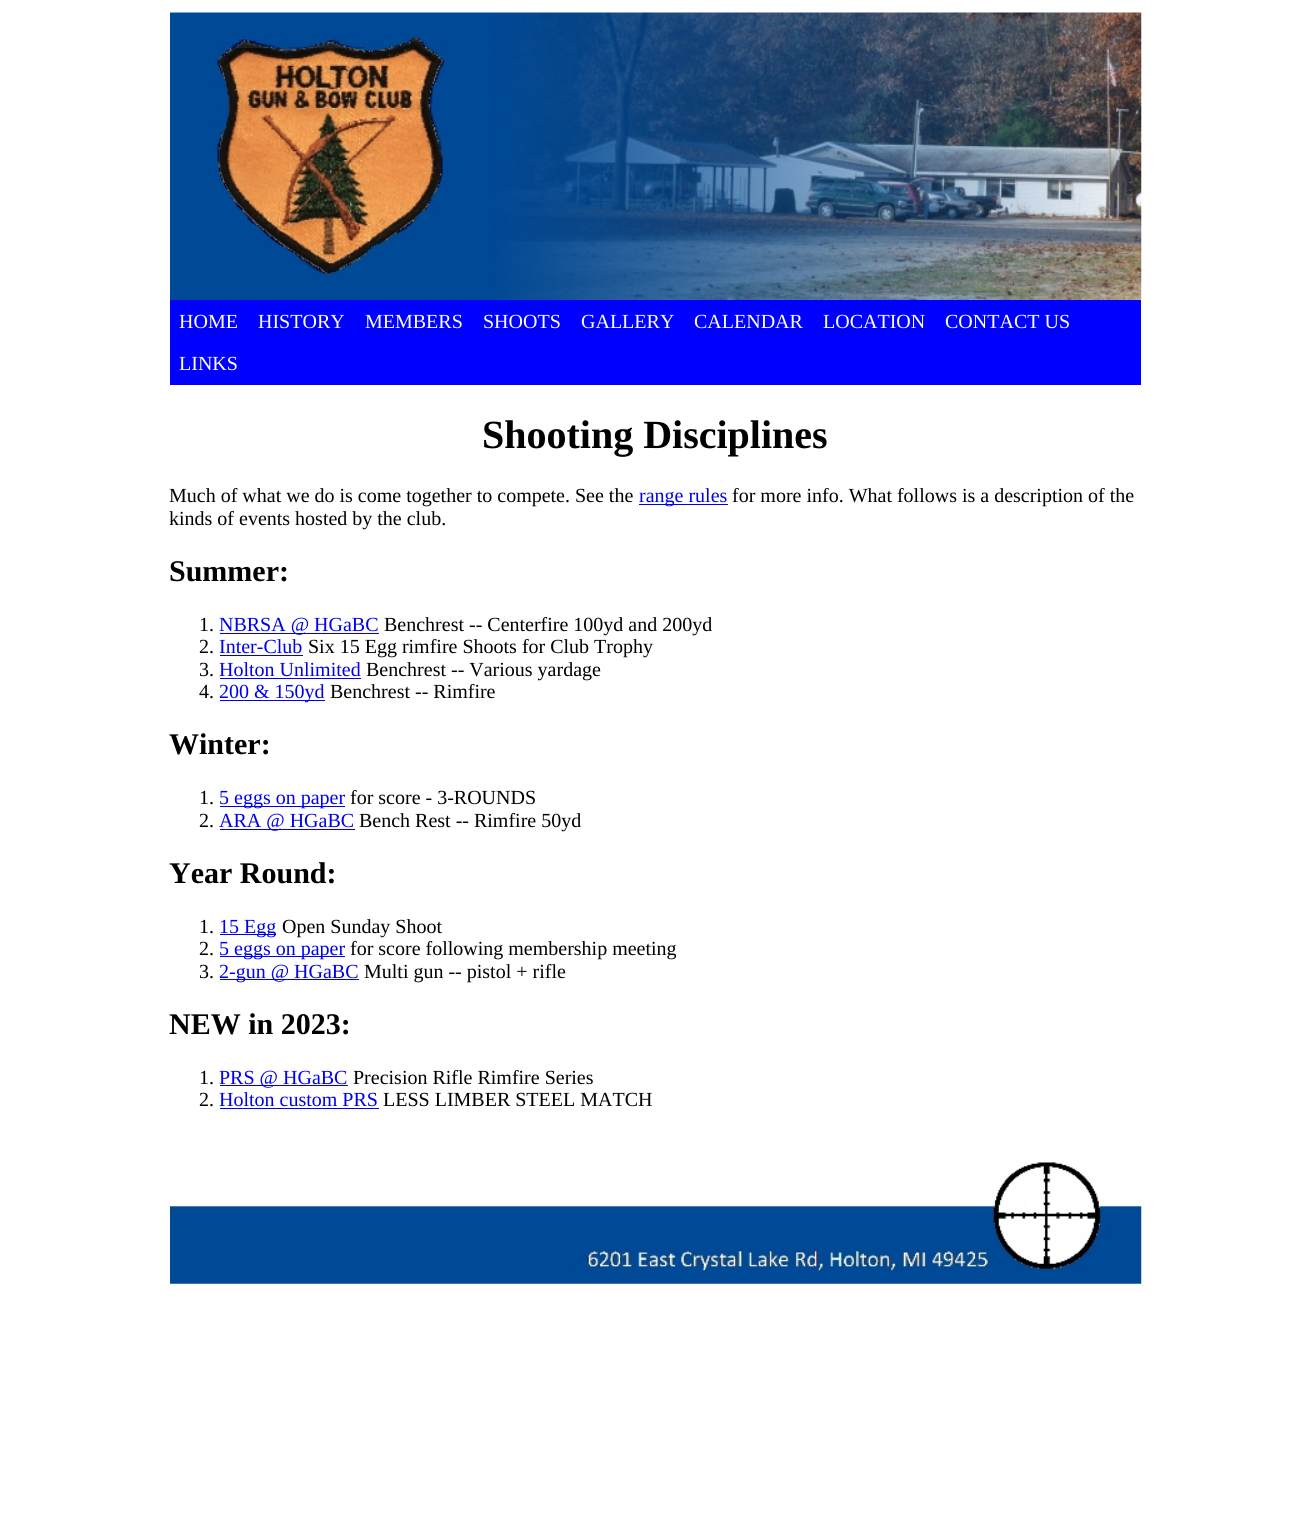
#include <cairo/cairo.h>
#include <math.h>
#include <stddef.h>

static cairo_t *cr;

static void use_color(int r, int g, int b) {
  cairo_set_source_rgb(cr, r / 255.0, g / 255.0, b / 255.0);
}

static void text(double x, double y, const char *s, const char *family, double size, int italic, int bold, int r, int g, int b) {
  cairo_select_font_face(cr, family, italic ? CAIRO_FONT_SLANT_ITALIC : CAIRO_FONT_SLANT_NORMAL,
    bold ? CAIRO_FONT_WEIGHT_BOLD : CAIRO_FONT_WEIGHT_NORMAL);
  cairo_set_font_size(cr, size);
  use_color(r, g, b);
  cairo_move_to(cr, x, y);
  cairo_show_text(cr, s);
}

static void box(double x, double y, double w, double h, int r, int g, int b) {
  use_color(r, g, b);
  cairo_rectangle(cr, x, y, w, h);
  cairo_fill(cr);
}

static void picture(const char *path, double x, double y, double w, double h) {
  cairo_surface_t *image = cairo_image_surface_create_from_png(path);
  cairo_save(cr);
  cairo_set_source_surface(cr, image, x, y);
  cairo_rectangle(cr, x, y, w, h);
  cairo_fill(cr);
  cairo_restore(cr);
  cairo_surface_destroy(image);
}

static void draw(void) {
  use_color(255, 255, 255);
  cairo_paint(cr);
  picture("img_01.png", 170, 12, 972, 288);
  box(170, 300, 971, 85, 0, 0, 255);
  box(639, 504, 89, 1, 0, 0, 238);
  box(220, 633, 159, 1, 0, 0, 238);
  box(220, 655, 83, 1, 0, 0, 238);
  box(220, 678, 141, 1, 0, 0, 238);
  box(220, 700, 105, 1, 0, 0, 238);
  box(220, 806, 125, 1, 0, 0, 238);
  box(220, 829, 135, 1, 0, 0, 238);
  box(220, 934, 56, 1, 0, 0, 238);
  box(220, 956, 125, 1, 0, 0, 238);
  box(220, 979, 139, 1, 0, 0, 238);
  box(220, 1085, 128, 1, 0, 0, 238);
  box(220, 1108, 159, 1, 0, 0, 238);
  picture("img_02.png", 170, 1162, 972, 122);
  text(179, 328, "HOME", "Liberation Serif", 20, 0, 0, 255, 255, 255);
  text(258, 328, "HISTORY", "Liberation Serif", 20, 0, 0, 255, 255, 255);
  text(365, 328, "MEMBERS", "Liberation Serif", 20, 0, 0, 255, 255, 255);
  text(483, 328, "SHOOTS", "Liberation Serif", 20, 0, 0, 255, 255, 255);
  text(581, 328, "GALLERY", "Liberation Serif", 20, 0, 0, 255, 255, 255);
  text(694, 328, "CALENDAR", "Liberation Serif", 20, 0, 0, 255, 255, 255);
  text(823, 328, "LOCATION", "Liberation Serif", 20, 0, 0, 255, 255, 255);
  text(945, 328, "CONTACT US", "Liberation Serif", 20, 0, 0, 255, 255, 255);
  text(179, 370, "LINKS", "Liberation Serif", 20, 0, 0, 255, 255, 255);
  text(482, 448, "Shooting Disciplines", "Liberation Serif", 40, 0, 1, 0, 0, 0);
  text(169, 502, "Much of what we do is come together to compete. See the", "Liberation Serif", 20, 0, 0, 0, 0, 0);
  text(639, 502, "range rules", "Liberation Serif", 20, 0, 0, 0, 0, 238);
  text(732, 502, "for more info. What follows is a description of the", "Liberation Serif", 20, 0, 0, 0, 0, 0);
  text(169, 525, "kinds of events hosted by the club.", "Liberation Serif", 20, 0, 0, 0, 0, 0);
  text(169, 581, "Summer:", "Liberation Serif", 30, 0, 1, 0, 0, 0);
  text(199, 631, "1.", "Liberation Serif", 20, 0, 0, 0, 0, 0);
  text(219, 631, "NBRSA @ HGaBC", "Liberation Serif", 20, 0, 0, 0, 0, 238);
  text(384, 631, "Benchrest -- Centerfire 100yd and 200yd", "Liberation Serif", 20, 0, 0, 0, 0, 0);
  text(199, 653, "2.", "Liberation Serif", 20, 0, 0, 0, 0, 0);
  text(219, 653, "Inter-Club", "Liberation Serif", 20, 0, 0, 0, 0, 238);
  text(308, 653, "Six 15 Egg rimfire Shoots for Club Trophy", "Liberation Serif", 20, 0, 0, 0, 0, 0);
  text(199, 676, "3.", "Liberation Serif", 20, 0, 0, 0, 0, 0);
  text(219, 676, "Holton Unlimited", "Liberation Serif", 20, 0, 0, 0, 0, 238);
  text(366, 676, "Benchrest -- Various yardage", "Liberation Serif", 20, 0, 0, 0, 0, 0);
  text(199, 698, "4.", "Liberation Serif", 20, 0, 0, 0, 0, 0);
  text(219, 698, "200 & 150yd", "Liberation Serif", 20, 0, 0, 0, 0, 238);
  text(330, 698, "Benchrest -- Rimfire", "Liberation Serif", 20, 0, 0, 0, 0, 0);
  text(169, 754, "Winter:", "Liberation Serif", 30, 0, 1, 0, 0, 0);
  text(199, 804, "1.", "Liberation Serif", 20, 0, 0, 0, 0, 0);
  text(219, 804, "5 eggs on paper", "Liberation Serif", 20, 0, 0, 0, 0, 238);
  text(350, 804, "for score - 3-ROUNDS", "Liberation Serif", 20, 0, 0, 0, 0, 0);
  text(199, 827, "2.", "Liberation Serif", 20, 0, 0, 0, 0, 0);
  text(219, 827, "ARA @ HGaBC", "Liberation Serif", 20, 0, 0, 0, 0, 238);
  text(359, 827, "Bench Rest -- Rimfire 50yd", "Liberation Serif", 20, 0, 0, 0, 0, 0);
  text(169, 883, "Year Round:", "Liberation Serif", 30, 0, 1, 0, 0, 0);
  text(199, 933, "1.", "Liberation Serif", 20, 0, 0, 0, 0, 0);
  text(219, 933, "15 Egg", "Liberation Serif", 20, 0, 0, 0, 0, 238);
  text(282, 933, "Open Sunday Shoot", "Liberation Serif", 20, 0, 0, 0, 0, 0);
  text(199, 955, "2.", "Liberation Serif", 20, 0, 0, 0, 0, 0);
  text(219, 955, "5 eggs on paper", "Liberation Serif", 20, 0, 0, 0, 0, 238);
  text(350, 955, "for score following membership meeting", "Liberation Serif", 20, 0, 0, 0, 0, 0);
  text(199, 978, "3.", "Liberation Serif", 20, 0, 0, 0, 0, 0);
  text(219, 978, "2-gun @ HGaBC", "Liberation Serif", 20, 0, 0, 0, 0, 238);
  text(364, 978, "Multi gun -- pistol + rifle", "Liberation Serif", 20, 0, 0, 0, 0, 0);
  text(169, 1034, "NEW in 2023:", "Liberation Serif", 30, 0, 1, 0, 0, 0);
  text(199, 1084, "1.", "Liberation Serif", 20, 0, 0, 0, 0, 0);
  text(219, 1084, "PRS @ HGaBC", "Liberation Serif", 20, 0, 0, 0, 0, 238);
  text(353, 1084, "Precision Rifle Rimfire Series", "Liberation Serif", 20, 0, 0, 0, 0, 0);
  text(199, 1106, "2.", "Liberation Serif", 20, 0, 0, 0, 0, 0);
  text(219, 1106, "Holton custom PRS", "Liberation Serif", 20, 0, 0, 0, 0, 238);
  text(383, 1106, "LESS LIMBER STEEL MATCH", "Liberation Serif", 20, 0, 0, 0, 0, 0);
}

int main(void) {
  cairo_surface_t *surface = cairo_image_surface_create(CAIRO_FORMAT_RGB24, 1309, 1540);
  cr = cairo_create(surface);
  cairo_font_options_t *options = cairo_font_options_create();
  cairo_font_options_set_hint_metrics(options, CAIRO_HINT_METRICS_OFF);
  cairo_font_options_set_hint_style(options, CAIRO_HINT_STYLE_NONE);
  cairo_set_font_options(cr, options);
  cairo_set_miter_limit(cr, 4);
  draw();
  cairo_surface_write_to_png(surface, "out.png");
  cairo_font_options_destroy(options);
  cairo_destroy(cr);
  cairo_surface_destroy(surface);
  return 0;
}
